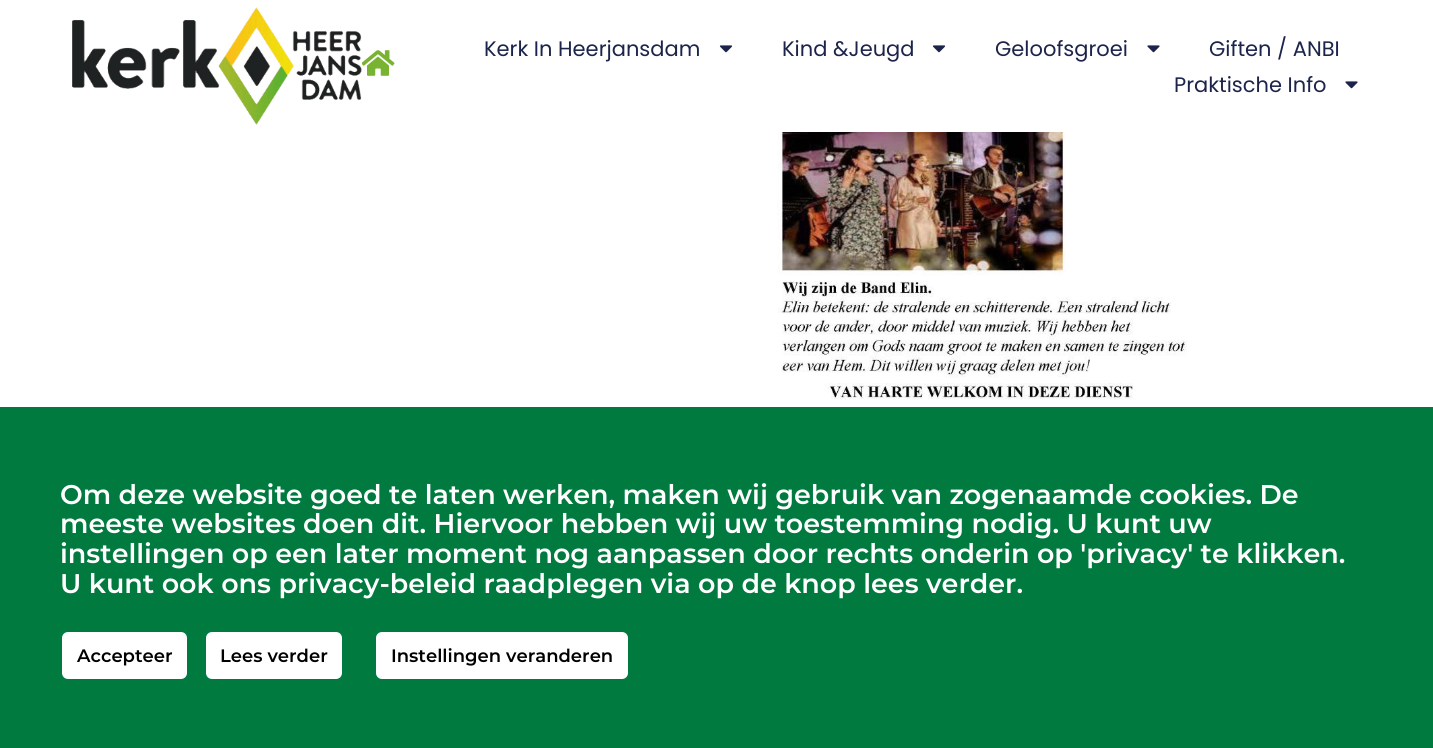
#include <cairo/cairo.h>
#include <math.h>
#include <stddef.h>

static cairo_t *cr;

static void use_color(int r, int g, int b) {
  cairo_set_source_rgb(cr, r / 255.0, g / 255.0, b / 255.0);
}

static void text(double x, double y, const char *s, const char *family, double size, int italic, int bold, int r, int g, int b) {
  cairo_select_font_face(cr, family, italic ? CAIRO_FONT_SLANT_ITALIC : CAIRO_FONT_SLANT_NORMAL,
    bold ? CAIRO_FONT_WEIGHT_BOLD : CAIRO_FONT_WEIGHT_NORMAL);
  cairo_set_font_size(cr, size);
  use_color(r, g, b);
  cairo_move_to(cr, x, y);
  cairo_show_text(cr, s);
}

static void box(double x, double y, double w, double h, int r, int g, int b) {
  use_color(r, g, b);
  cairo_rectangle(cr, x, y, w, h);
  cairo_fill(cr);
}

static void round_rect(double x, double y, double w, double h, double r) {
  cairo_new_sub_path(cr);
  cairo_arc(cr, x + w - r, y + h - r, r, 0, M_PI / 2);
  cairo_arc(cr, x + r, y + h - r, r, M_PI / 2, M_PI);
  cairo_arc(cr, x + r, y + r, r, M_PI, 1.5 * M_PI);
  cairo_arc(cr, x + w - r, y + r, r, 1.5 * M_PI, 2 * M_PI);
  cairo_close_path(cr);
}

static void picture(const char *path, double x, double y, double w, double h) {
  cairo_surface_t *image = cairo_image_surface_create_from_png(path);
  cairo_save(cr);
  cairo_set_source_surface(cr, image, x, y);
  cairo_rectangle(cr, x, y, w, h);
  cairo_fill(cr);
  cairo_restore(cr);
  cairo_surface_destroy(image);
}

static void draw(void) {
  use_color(255, 255, 255);
  cairo_paint(cr);
  picture("img_01.png", 72, 7, 290, 118);
  picture("img_02.png", 362, 50, 33, 26);
  picture("img_03.png", 719, 45, 14, 8);
  picture("img_03.png", 932, 45, 14, 8);
  picture("img_04.png", 1147, 45, 13, 8);
  picture("img_04.png", 1345, 81, 13, 8);
  picture("img_05.png", 777, 132, 421, 268);
  box(0, 407, 1433, 341, 0, 122, 62);
  use_color(255, 255, 255);
  round_rect(61, 631, 127, 49, 7);
  cairo_fill_preserve(cr);
  use_color(0, 122, 62);
  cairo_stroke(cr);
  use_color(255, 255, 255);
  round_rect(205, 631, 138, 49, 7);
  cairo_fill_preserve(cr);
  use_color(0, 122, 62);
  cairo_stroke(cr);
  use_color(255, 255, 255);
  round_rect(375, 631, 254, 49, 7);
  cairo_fill_preserve(cr);
  use_color(0, 122, 62);
  cairo_stroke(cr);
  text(484, 56, "Kerk In Heerjansdam", "Poppins", 21, 0, 0, 28, 36, 75);
  text(782, 56, "Kind &Jeugd", "Poppins", 21, 0, 0, 28, 36, 75);
  text(995, 56, "Geloofsgroei", "Poppins", 21, 0, 0, 28, 36, 75);
  text(1209, 56, "Giften / ANBI", "Poppins", 21, 0, 0, 28, 36, 75);
  text(1174, 92, "Praktische Info", "Poppins", 21, 0, 0, 28, 36, 75);
  text(60, 504, "Om deze website goed te laten werken, maken wij gebruik van zogenaamde cookies. De", "Montserrat SemiBold", 27, 0, 0, 255, 255, 255);
  text(60, 533, "meeste websites doen dit. Hiervoor hebben wij uw toestemming nodig. U kunt uw", "Montserrat SemiBold", 27, 0, 0, 255, 255, 255);
  text(60, 563, "instellingen op een later moment nog aanpassen door rechts onderin op 'privacy' te klikken.", "Montserrat SemiBold", 27, 0, 0, 255, 255, 255);
  text(60, 593, "U kunt ook ons privacy-beleid raadplegen via op de knop lees verder.", "Montserrat SemiBold", 27, 0, 0, 255, 255, 255);
  text(77, 662, "Accepteer", "Montserrat SemiBold", 18, 0, 0, 0, 0, 0);
  text(220, 662, "Lees verder", "Montserrat SemiBold", 18, 0, 0, 0, 0, 0);
  text(391, 662, "Instellingen veranderen", "Montserrat SemiBold", 18, 0, 0, 0, 0, 0);
}

int main(void) {
  cairo_surface_t *surface = cairo_image_surface_create(CAIRO_FORMAT_RGB24, 1433, 748);
  cr = cairo_create(surface);
  cairo_font_options_t *options = cairo_font_options_create();
  cairo_font_options_set_hint_metrics(options, CAIRO_HINT_METRICS_OFF);
  cairo_font_options_set_hint_style(options, CAIRO_HINT_STYLE_NONE);
  cairo_set_font_options(cr, options);
  cairo_set_miter_limit(cr, 4);
  draw();
  cairo_surface_write_to_png(surface, "out.png");
  cairo_font_options_destroy(options);
  cairo_destroy(cr);
  cairo_surface_destroy(surface);
  return 0;
}
